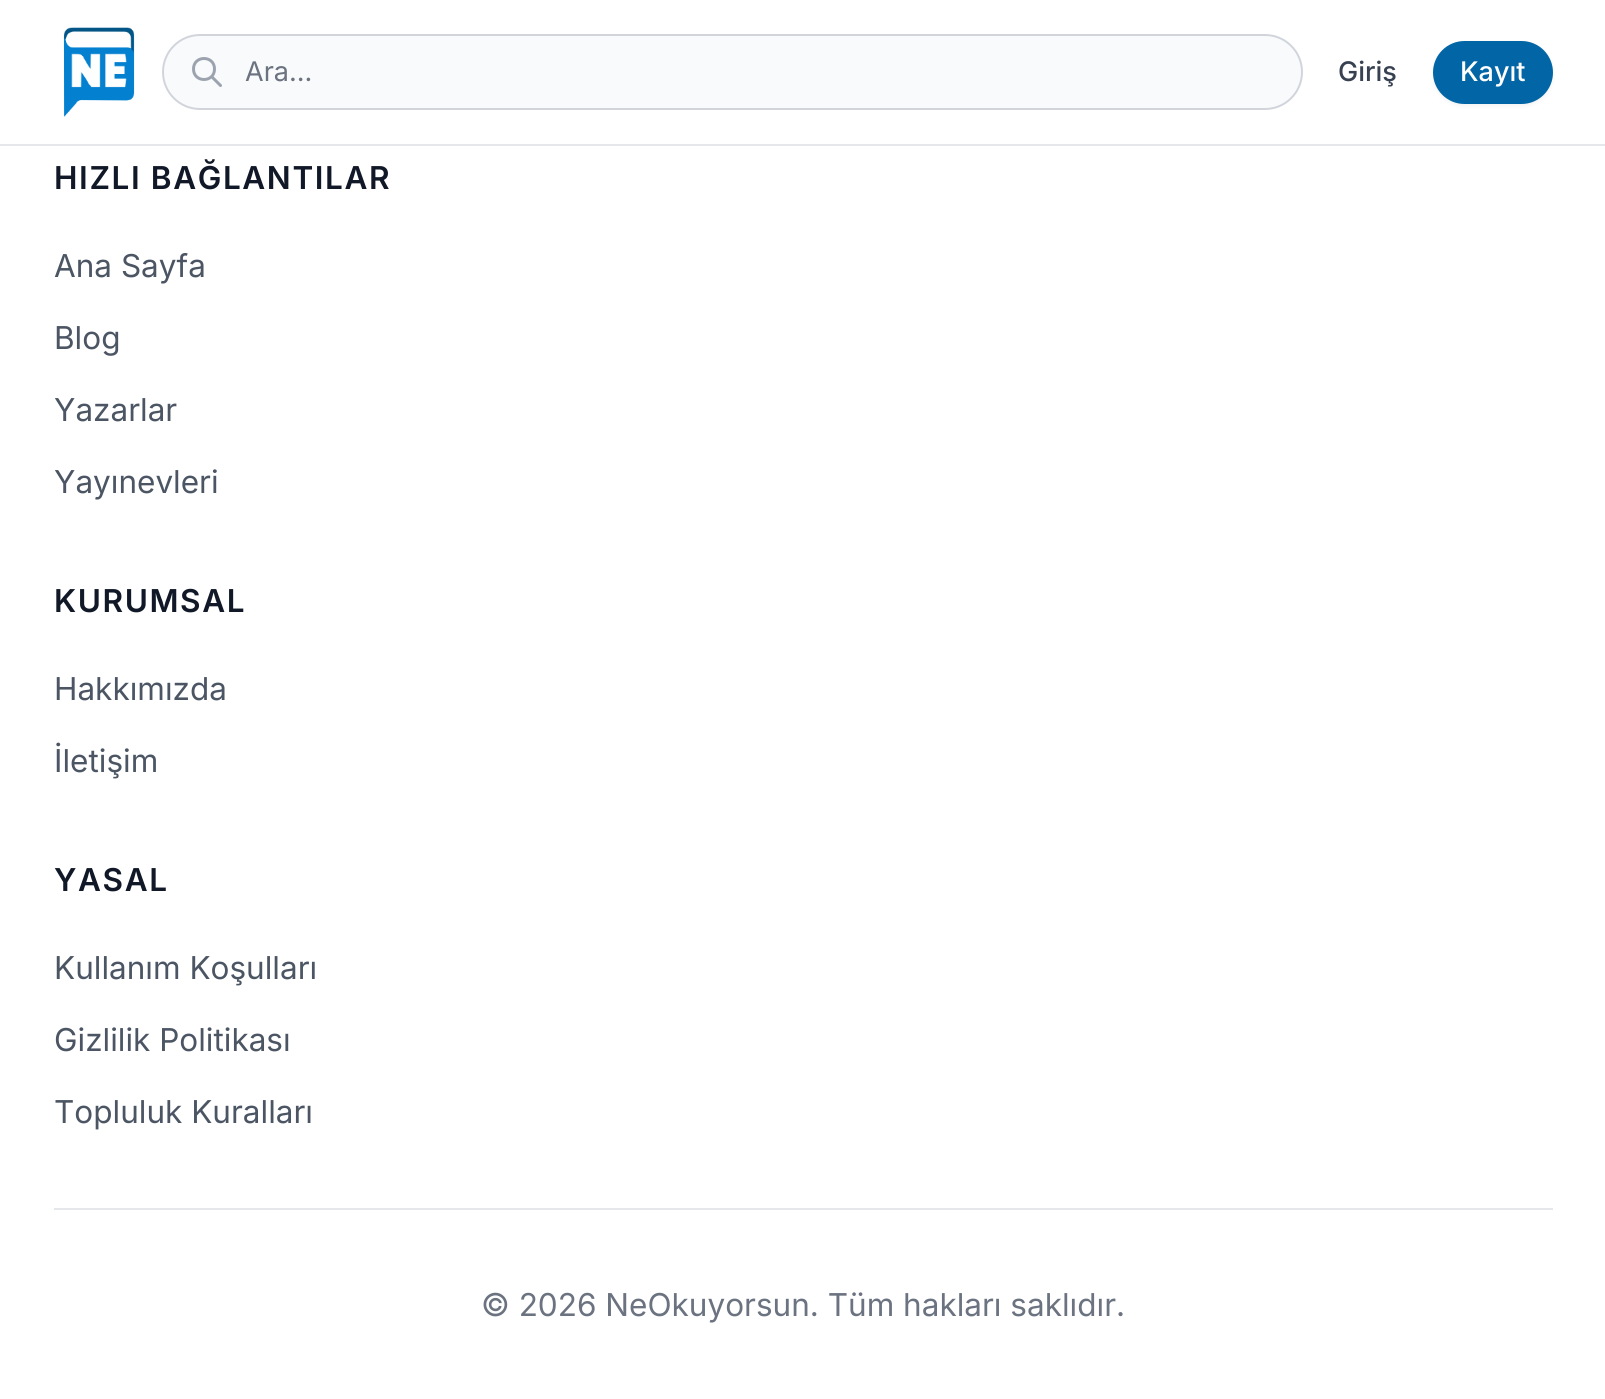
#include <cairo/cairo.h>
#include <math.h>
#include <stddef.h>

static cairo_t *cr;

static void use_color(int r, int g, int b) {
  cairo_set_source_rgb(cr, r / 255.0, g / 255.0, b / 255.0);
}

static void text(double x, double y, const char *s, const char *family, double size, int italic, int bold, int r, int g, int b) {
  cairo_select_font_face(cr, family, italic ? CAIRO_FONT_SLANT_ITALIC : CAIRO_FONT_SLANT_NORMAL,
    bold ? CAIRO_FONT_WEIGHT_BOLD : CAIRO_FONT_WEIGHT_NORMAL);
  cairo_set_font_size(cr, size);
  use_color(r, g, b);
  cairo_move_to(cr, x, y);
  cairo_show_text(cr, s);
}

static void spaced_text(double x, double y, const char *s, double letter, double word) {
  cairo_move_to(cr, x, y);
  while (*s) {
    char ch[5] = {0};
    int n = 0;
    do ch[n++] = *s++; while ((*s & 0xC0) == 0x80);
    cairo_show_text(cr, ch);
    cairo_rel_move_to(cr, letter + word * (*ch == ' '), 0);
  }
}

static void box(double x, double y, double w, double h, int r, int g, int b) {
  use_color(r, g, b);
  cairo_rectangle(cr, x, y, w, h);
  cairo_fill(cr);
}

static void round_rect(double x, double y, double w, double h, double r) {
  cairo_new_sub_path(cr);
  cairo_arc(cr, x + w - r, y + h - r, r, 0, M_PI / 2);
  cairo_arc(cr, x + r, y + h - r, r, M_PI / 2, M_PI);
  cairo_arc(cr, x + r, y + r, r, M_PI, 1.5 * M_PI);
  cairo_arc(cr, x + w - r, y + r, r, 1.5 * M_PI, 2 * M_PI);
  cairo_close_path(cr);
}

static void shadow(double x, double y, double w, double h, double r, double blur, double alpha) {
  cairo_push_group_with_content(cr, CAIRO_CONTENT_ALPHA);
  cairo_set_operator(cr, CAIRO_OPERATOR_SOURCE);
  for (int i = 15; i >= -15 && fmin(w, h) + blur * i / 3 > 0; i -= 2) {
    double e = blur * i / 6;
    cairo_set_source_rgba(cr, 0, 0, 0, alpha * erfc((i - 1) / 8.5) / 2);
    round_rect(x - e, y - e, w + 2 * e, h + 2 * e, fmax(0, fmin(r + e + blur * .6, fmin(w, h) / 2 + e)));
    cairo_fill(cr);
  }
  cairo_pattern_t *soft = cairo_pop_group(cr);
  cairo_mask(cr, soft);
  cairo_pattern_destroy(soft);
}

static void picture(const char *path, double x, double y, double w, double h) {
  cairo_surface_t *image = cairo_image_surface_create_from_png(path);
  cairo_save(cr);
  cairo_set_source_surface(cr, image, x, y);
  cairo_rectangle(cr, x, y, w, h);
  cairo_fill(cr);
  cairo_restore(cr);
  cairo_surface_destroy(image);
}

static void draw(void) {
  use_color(255, 255, 255);
  cairo_paint(cr);
  box(0, 144, 1605, 2, 229, 231, 235);
  picture("img_01.png", 63, 27, 72, 90);
  use_color(249, 250, 251);
  round_rect(163, 35, 1139, 74, 37);
  cairo_fill_preserve(cr);
  use_color(209, 213, 219);
  cairo_stroke(cr);
  cairo_new_path(cr);
  cairo_move_to(cr, 220.5, 85.5);
  cairo_line_to(cr, 211.5, 76.5);
  cairo_move_to(cr, 214.5, 69);
  cairo_curve_to(cr, 214.5, 83, 193.5, 83, 193.5, 69);
  cairo_curve_to(cr, 193.5, 55, 214.5, 55, 214.5, 69);
  cairo_close_path(cr);
  use_color(156, 163, 175);
  cairo_set_line_width(cr, 3);
  cairo_set_line_cap(cr, CAIRO_LINE_CAP_ROUND);
  cairo_set_line_join(cr, CAIRO_LINE_JOIN_ROUND);
  cairo_stroke(cr);
  use_color(0, 0, 0);
  shadow(1433, 43, 120, 63, 31.5, 2, 0.05);
  use_color(2, 102, 166);
  round_rect(1433, 41, 120, 63, 31.5);
  cairo_fill(cr);
  box(54, 1208, 1499, 2, 229, 231, 235);
  text(245, 81, "Ara...", "Inter", 27, 0, 0, 107, 114, 128);
  text(1338, 81, "Giriş", "Inter Medium", 27, 0, 0, 55, 65, 81);
  text(1460, 81, "Kayıt", "Inter Medium", 27, 0, 0, 255, 255, 255);
  cairo_select_font_face(cr, "Inter SemiBold", CAIRO_FONT_SLANT_NORMAL, CAIRO_FONT_WEIGHT_NORMAL);
  cairo_set_font_size(cr, 31.5);
  use_color(17, 24, 39);
  spaced_text(54, 189, "HIZLI BAĞLANTILAR", 1.6, 0);
  text(54, 277, "Ana Sayfa", "Inter", 31.5, 0, 0, 75, 85, 99);
  text(54, 349, "Blog", "Inter", 31.5, 0, 0, 75, 85, 99);
  text(54, 421, "Yazarlar", "Inter", 31.5, 0, 0, 75, 85, 99);
  text(54, 493, "Yayınevleri", "Inter", 31.5, 0, 0, 75, 85, 99);
  cairo_select_font_face(cr, "Inter SemiBold", CAIRO_FONT_SLANT_NORMAL, CAIRO_FONT_WEIGHT_NORMAL);
  use_color(17, 24, 39);
  spaced_text(54, 612, "KURUMSAL", 1.6, 0);
  text(54, 700, "Hakkımızda", "Inter", 31.5, 0, 0, 75, 85, 99);
  text(54, 772, "İletişim", "Inter", 31.5, 0, 0, 75, 85, 99);
  cairo_select_font_face(cr, "Inter SemiBold", CAIRO_FONT_SLANT_NORMAL, CAIRO_FONT_WEIGHT_NORMAL);
  use_color(17, 24, 39);
  spaced_text(54, 891, "YASAL", 1.6, 0);
  text(54, 979, "Kullanım Koşulları", "Inter", 31.5, 0, 0, 75, 85, 99);
  text(54, 1051, "Gizlilik Politikası", "Inter", 31.5, 0, 0, 75, 85, 99);
  text(54, 1123, "Topluluk Kuralları", "Inter", 31.5, 0, 0, 75, 85, 99);
  text(481, 1316, "© 2026 NeOkuyorsun. Tüm hakları saklıdır.", "Inter", 31.5, 0, 0, 107, 114, 128);
}

int main(void) {
  cairo_surface_t *surface = cairo_image_surface_create(CAIRO_FORMAT_RGB24, 1605, 1399);
  cr = cairo_create(surface);
  cairo_font_options_t *options = cairo_font_options_create();
  cairo_font_options_set_hint_metrics(options, CAIRO_HINT_METRICS_OFF);
  cairo_font_options_set_hint_style(options, CAIRO_HINT_STYLE_NONE);
  cairo_set_font_options(cr, options);
  cairo_set_miter_limit(cr, 4);
  draw();
  cairo_surface_write_to_png(surface, "out.png");
  cairo_font_options_destroy(options);
  cairo_destroy(cr);
  cairo_surface_destroy(surface);
  return 0;
}
